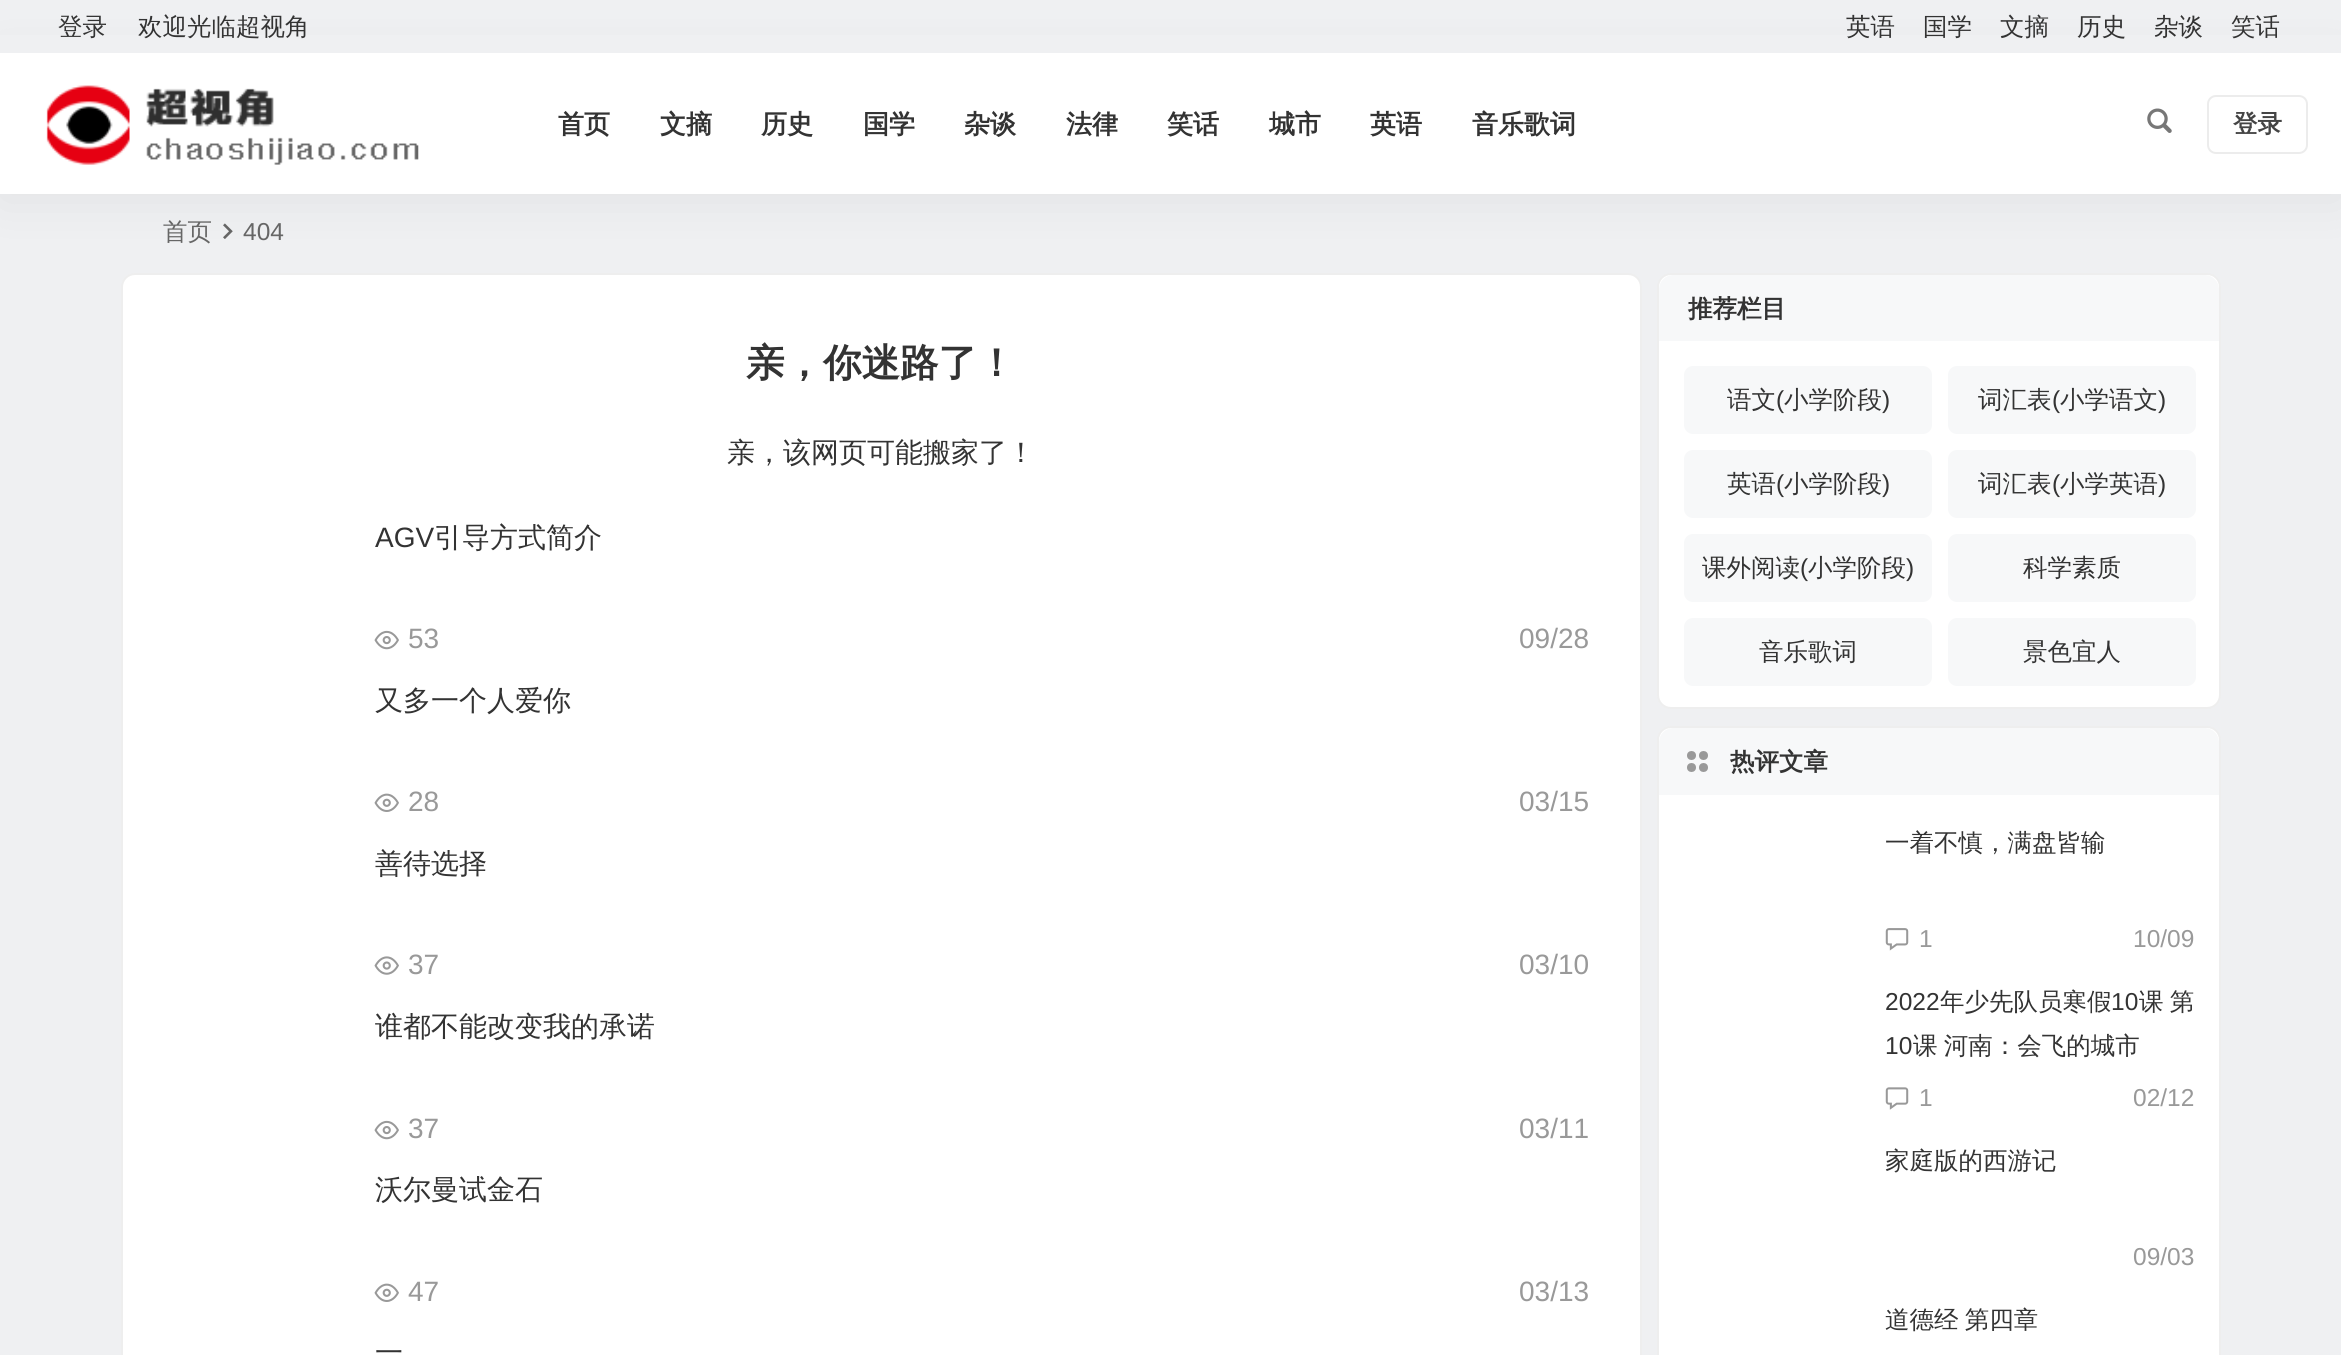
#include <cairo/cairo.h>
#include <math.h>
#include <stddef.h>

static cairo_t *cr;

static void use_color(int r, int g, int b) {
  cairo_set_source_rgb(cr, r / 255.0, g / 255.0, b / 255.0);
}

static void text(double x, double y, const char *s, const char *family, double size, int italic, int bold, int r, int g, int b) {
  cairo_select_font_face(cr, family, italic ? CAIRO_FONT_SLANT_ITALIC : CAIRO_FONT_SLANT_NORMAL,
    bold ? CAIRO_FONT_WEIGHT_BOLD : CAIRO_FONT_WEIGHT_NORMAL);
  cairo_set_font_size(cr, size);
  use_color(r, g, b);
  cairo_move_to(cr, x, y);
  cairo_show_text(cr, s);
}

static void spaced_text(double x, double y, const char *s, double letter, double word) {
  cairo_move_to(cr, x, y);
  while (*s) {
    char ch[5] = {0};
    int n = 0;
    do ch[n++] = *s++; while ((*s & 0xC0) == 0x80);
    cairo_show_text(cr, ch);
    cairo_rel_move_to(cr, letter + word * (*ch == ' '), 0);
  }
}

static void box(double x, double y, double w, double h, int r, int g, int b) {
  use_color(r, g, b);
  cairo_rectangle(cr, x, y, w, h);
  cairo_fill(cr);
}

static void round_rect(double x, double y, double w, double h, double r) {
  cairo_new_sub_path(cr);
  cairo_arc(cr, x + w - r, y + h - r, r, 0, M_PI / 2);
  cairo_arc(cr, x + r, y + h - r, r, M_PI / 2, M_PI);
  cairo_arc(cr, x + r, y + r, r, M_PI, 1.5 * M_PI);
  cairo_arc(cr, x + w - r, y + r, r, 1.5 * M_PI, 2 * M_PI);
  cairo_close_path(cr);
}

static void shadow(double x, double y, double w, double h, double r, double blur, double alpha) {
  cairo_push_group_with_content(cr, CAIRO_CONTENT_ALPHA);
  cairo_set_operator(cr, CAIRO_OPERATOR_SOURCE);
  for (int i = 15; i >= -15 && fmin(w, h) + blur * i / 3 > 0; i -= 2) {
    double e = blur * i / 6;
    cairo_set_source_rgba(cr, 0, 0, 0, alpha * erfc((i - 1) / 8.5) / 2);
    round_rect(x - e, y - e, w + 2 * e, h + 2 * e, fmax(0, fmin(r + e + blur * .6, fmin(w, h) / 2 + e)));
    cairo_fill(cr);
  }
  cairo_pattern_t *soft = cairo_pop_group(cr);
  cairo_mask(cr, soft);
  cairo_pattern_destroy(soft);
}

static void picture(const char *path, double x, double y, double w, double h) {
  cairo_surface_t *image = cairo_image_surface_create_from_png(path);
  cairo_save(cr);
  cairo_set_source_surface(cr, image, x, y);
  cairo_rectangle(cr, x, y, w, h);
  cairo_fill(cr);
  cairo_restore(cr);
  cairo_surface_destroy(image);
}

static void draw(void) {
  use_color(239, 240, 242);
  cairo_paint(cr);
  picture("img_03.png", 223, 223, 10, 16);
  use_color(255, 255, 255);
  round_rect(121, 273, 1521, 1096, 14);
  cairo_fill(cr);
  round_rect(122, 274, 1519, 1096, 13);
  cairo_set_source_rgba(cr, 0, 0, 0, 0.07);
  cairo_stroke(cr);
  use_color(255, 255, 255);
  round_rect(1657, 273, 564, 436, 14);
  cairo_fill(cr);
  round_rect(1658, 274, 562, 434, 13);
  cairo_set_source_rgba(cr, 0, 0, 0, 0.07);
  cairo_stroke(cr);
  use_color(247, 248, 249);
  cairo_new_path(cr);
  cairo_move_to(cr, 1673, 275);
  cairo_line_to(cr, 2205, 275);
  cairo_curve_to(cr, 2212.5, 275, 2219, 281.5, 2219, 289);
  cairo_line_to(cr, 2219, 341);
  cairo_line_to(cr, 1659, 341);
  cairo_line_to(cr, 1659, 289);
  cairo_curve_to(cr, 1659, 281.5, 1665.5, 275, 1673, 275);
  cairo_close_path(cr);
  cairo_fill(cr);
  use_color(0, 0, 0);
  shadow(0, 58, 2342, 142, 0, 26, 0.06);
  box(0, 35, 2341, 18, 239, 240, 242);
  box(0, 53, 2341, 141, 255, 255, 255);
  picture("img_01.png", 46, 85, 373, 80);
  picture("img_02.png", 2147, 108, 25, 25);
  round_rect(2208, 96, 99, 57, 8);
  use_color(236, 236, 236);
  cairo_stroke(cr);
  picture("img_04.png", 374, 630, 25, 20);
  picture("img_05.png", 374, 793, 25, 19);
  picture("img_06.png", 374, 956, 25, 19);
  picture("img_04.png", 374, 1120, 25, 20);
  picture("img_05.png", 374, 1283, 25, 19);
  use_color(247, 248, 249);
  round_rect(1684, 366, 248, 68, 9);
  cairo_fill(cr);
  round_rect(1948, 366, 248, 68, 9);
  cairo_fill(cr);
  round_rect(1684, 450, 248, 68, 9);
  cairo_fill(cr);
  round_rect(1948, 450, 248, 68, 9);
  cairo_fill(cr);
  round_rect(1684, 534, 248, 68, 9);
  cairo_fill(cr);
  round_rect(1948, 534, 248, 68, 9);
  cairo_fill(cr);
  round_rect(1684, 618, 248, 68, 9);
  cairo_fill(cr);
  round_rect(1948, 618, 248, 68, 9);
  cairo_fill(cr);
  use_color(255, 255, 255);
  round_rect(1657, 726, 564, 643, 14);
  cairo_fill(cr);
  round_rect(1658, 727, 562, 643, 13);
  cairo_set_source_rgba(cr, 0, 0, 0, 0.07);
  cairo_stroke(cr);
  use_color(247, 248, 249);
  cairo_new_path(cr);
  cairo_move_to(cr, 1673, 728);
  cairo_line_to(cr, 2205, 728);
  cairo_curve_to(cr, 2212.5, 728, 2219, 734.5, 2219, 742);
  cairo_line_to(cr, 2219, 795);
  cairo_line_to(cr, 1659, 795);
  cairo_line_to(cr, 1659, 742);
  cairo_curve_to(cr, 1659, 734.5, 1665.5, 728, 1673, 728);
  cairo_close_path(cr);
  cairo_fill(cr);
  use_color(153, 153, 153);
  cairo_arc(cr, 1691.5, 755.5, 4.5, 0, 2 * M_PI);
  cairo_fill(cr);
  cairo_arc(cr, 1703.5, 755.5, 4.5, 0, 2 * M_PI);
  cairo_fill(cr);
  cairo_arc(cr, 1691.5, 767.5, 4.5, 0, 2 * M_PI);
  cairo_fill(cr);
  cairo_arc(cr, 1703.5, 767.5, 4.5, 0, 2 * M_PI);
  cairo_fill(cr);
  picture("img_07.png", 1885, 928, 24, 23);
  picture("img_08.png", 1885, 1087, 24, 23);
  text(58, 35, "登录", "WenQuanYi Zen Hei Medium", 24.5, 0, 0, 51, 51, 51);
  text(138, 35, "欢迎光临超视角", "WenQuanYi Zen Hei Medium", 24.5, 0, 0, 51, 51, 51);
  text(1846, 35, "英语", "WenQuanYi Zen Hei Medium", 24.5, 0, 0, 51, 51, 51);
  text(1923, 35, "国学", "WenQuanYi Zen Hei Medium", 24.5, 0, 0, 51, 51, 51);
  text(2000, 35, "文摘", "WenQuanYi Zen Hei Medium", 24.5, 0, 0, 51, 51, 51);
  text(2077, 35, "历史", "WenQuanYi Zen Hei Medium", 24.5, 0, 0, 51, 51, 51);
  text(2154, 35, "杂谈", "WenQuanYi Zen Hei Medium", 24.5, 0, 0, 51, 51, 51);
  text(2231, 35, "笑话", "WenQuanYi Zen Hei Medium", 24.5, 0, 0, 51, 51, 51);
  text(558, 133, "首页", "WenQuanYi Zen Hei", 26, 0, 1, 51, 51, 51);
  text(660, 133, "文摘", "WenQuanYi Zen Hei", 26, 0, 1, 51, 51, 51);
  text(761, 133, "历史", "WenQuanYi Zen Hei", 26, 0, 1, 51, 51, 51);
  text(863, 133, "国学", "WenQuanYi Zen Hei", 26, 0, 1, 51, 51, 51);
  text(964, 133, "杂谈", "WenQuanYi Zen Hei", 26, 0, 1, 51, 51, 51);
  text(1066, 133, "法律", "WenQuanYi Zen Hei", 26, 0, 1, 51, 51, 51);
  text(1167, 133, "笑话", "WenQuanYi Zen Hei", 26, 0, 1, 51, 51, 51);
  text(1269, 133, "城市", "WenQuanYi Zen Hei", 26, 0, 1, 51, 51, 51);
  text(1370, 133, "英语", "WenQuanYi Zen Hei", 26, 0, 1, 51, 51, 51);
  text(1472, 133, "音乐歌词", "WenQuanYi Zen Hei", 26, 0, 1, 51, 51, 51);
  text(2233, 132, "登录", "WenQuanYi Zen Hei", 24.5, 0, 1, 68, 68, 68);
  text(163, 240, "首页", "WenQuanYi Zen Hei Medium", 24.5, 0, 0, 102, 102, 102);
  text(243, 240, "404", "Liberation Sans", 24.5, 0, 0, 102, 102, 102);
  text(746, 376, "亲，你迷路了！", "WenQuanYi Zen Hei", 38.5, 0, 1, 51, 51, 51);
  text(727, 462, "亲，该网页可能搬家了！", "WenQuanYi Zen Hei Medium", 28, 0, 0, 51, 51, 51);
  text(375, 547, "AGV", "Liberation Sans", 28, 0, 0, 51, 51, 51);
  text(434, 547, "引导方式简介", "WenQuanYi Zen Hei Medium", 28, 0, 0, 51, 51, 51);
  text(408, 648, "53", "Liberation Sans", 28, 0, 0, 153, 153, 153);
  text(1519, 648, "09/28", "Liberation Sans", 28, 0, 0, 153, 153, 153);
  text(375, 710, "又多一个人爱你", "WenQuanYi Zen Hei Medium", 28, 0, 0, 51, 51, 51);
  text(408, 811, "28", "Liberation Sans", 28, 0, 0, 153, 153, 153);
  text(1519, 811, "03/15", "Liberation Sans", 28, 0, 0, 153, 153, 153);
  text(375, 873, "善待选择", "WenQuanYi Zen Hei Medium", 28, 0, 0, 51, 51, 51);
  text(408, 974, "37", "Liberation Sans", 28, 0, 0, 153, 153, 153);
  text(1519, 974, "03/10", "Liberation Sans", 28, 0, 0, 153, 153, 153);
  text(375, 1036, "谁都不能改变我的承诺", "WenQuanYi Zen Hei Medium", 28, 0, 0, 51, 51, 51);
  text(408, 1138, "37", "Liberation Sans", 28, 0, 0, 153, 153, 153);
  text(1519, 1138, "03/11", "Liberation Sans", 28, 0, 0, 153, 153, 153);
  text(375, 1199, "沃尔曼试金石", "WenQuanYi Zen Hei Medium", 28, 0, 0, 51, 51, 51);
  text(408, 1301, "47", "Liberation Sans", 28, 0, 0, 153, 153, 153);
  text(1519, 1301, "03/13", "Liberation Sans", 28, 0, 0, 153, 153, 153);
  text(375, 1362, "一", "WenQuanYi Zen Hei Medium", 28, 0, 0, 51, 51, 51);
  text(1688, 317, "推荐栏目", "WenQuanYi Zen Hei", 24.5, 0, 1, 51, 51, 51);
  text(1727, 408, "语文", "WenQuanYi Zen Hei Medium", 24.5, 0, 0, 51, 51, 51);
  text(1776, 408, "(", "Liberation Sans", 24.5, 0, 0, 51, 51, 51);
  text(1784, 408, "小学阶段", "WenQuanYi Zen Hei Medium", 24.5, 0, 0, 51, 51, 51);
  text(1882, 408, ")", "Liberation Sans", 24.5, 0, 0, 51, 51, 51);
  text(1978, 408, "词汇表", "WenQuanYi Zen Hei Medium", 24.5, 0, 0, 51, 51, 51);
  text(2052, 408, "(", "Liberation Sans", 24.5, 0, 0, 51, 51, 51);
  text(2060, 408, "小学语文", "WenQuanYi Zen Hei Medium", 24.5, 0, 0, 51, 51, 51);
  text(2158, 408, ")", "Liberation Sans", 24.5, 0, 0, 51, 51, 51);
  text(1727, 492, "英语", "WenQuanYi Zen Hei Medium", 24.5, 0, 0, 51, 51, 51);
  text(1776, 492, "(", "Liberation Sans", 24.5, 0, 0, 51, 51, 51);
  text(1784, 492, "小学阶段", "WenQuanYi Zen Hei Medium", 24.5, 0, 0, 51, 51, 51);
  text(1882, 492, ")", "Liberation Sans", 24.5, 0, 0, 51, 51, 51);
  text(1978, 492, "词汇表", "WenQuanYi Zen Hei Medium", 24.5, 0, 0, 51, 51, 51);
  text(2052, 492, "(", "Liberation Sans", 24.5, 0, 0, 51, 51, 51);
  text(2060, 492, "小学英语", "WenQuanYi Zen Hei Medium", 24.5, 0, 0, 51, 51, 51);
  text(2158, 492, ")", "Liberation Sans", 24.5, 0, 0, 51, 51, 51);
  text(1702, 576, "课外阅读", "WenQuanYi Zen Hei Medium", 24.5, 0, 0, 51, 51, 51);
  text(1800, 576, "(", "Liberation Sans", 24.5, 0, 0, 51, 51, 51);
  text(1808, 576, "小学阶段", "WenQuanYi Zen Hei Medium", 24.5, 0, 0, 51, 51, 51);
  text(1906, 576, ")", "Liberation Sans", 24.5, 0, 0, 51, 51, 51);
  text(2023, 576, "科学素质", "WenQuanYi Zen Hei Medium", 24.5, 0, 0, 51, 51, 51);
  text(1759, 660, "音乐歌词", "WenQuanYi Zen Hei Medium", 24.5, 0, 0, 51, 51, 51);
  text(2023, 660, "景色宜人", "WenQuanYi Zen Hei Medium", 24.5, 0, 0, 51, 51, 51);
  text(1730, 770, "热评文章", "WenQuanYi Zen Hei", 24.5, 0, 1, 51, 51, 51);
  text(1885, 851, "一着不慎，满盘皆输", "WenQuanYi Zen Hei Medium", 24.5, 0, 0, 51, 51, 51);
  text(1919, 947, "1", "Liberation Sans", 24.5, 0, 0, 153, 153, 153);
  text(2133, 947, "10/09", "Liberation Sans", 24.5, 0, 0, 153, 153, 153);
  text(1885, 1010, "2022", "Liberation Sans", 24.5, 0, 0, 51, 51, 51);
  text(1940, 1010, "年少先队员寒假", "WenQuanYi Zen Hei Medium", 24.5, 0, 0, 51, 51, 51);
  text(2111, 1010, "10", "Liberation Sans", 24.5, 0, 0, 51, 51, 51);
  cairo_select_font_face(cr, "WenQuanYi Zen Hei Medium", CAIRO_FONT_SLANT_NORMAL, CAIRO_FONT_WEIGHT_NORMAL);
  spaced_text(2139, 1010, "课 第", 0, -1);
  text(1885, 1054, "10", "Liberation Sans", 24.5, 0, 0, 51, 51, 51);
  cairo_select_font_face(cr, "WenQuanYi Zen Hei Medium", CAIRO_FONT_SLANT_NORMAL, CAIRO_FONT_WEIGHT_NORMAL);
  spaced_text(1913, 1054, "课 河南：会飞的城市", 0, -1);
  text(1919, 1106, "1", "Liberation Sans", 24.5, 0, 0, 153, 153, 153);
  text(2133, 1106, "02/12", "Liberation Sans", 24.5, 0, 0, 153, 153, 153);
  text(1885, 1169, "家庭版的西游记", "WenQuanYi Zen Hei Medium", 24.5, 0, 0, 51, 51, 51);
  text(2133, 1265, "09/03", "Liberation Sans", 24.5, 0, 0, 153, 153, 153);
  cairo_select_font_face(cr, "WenQuanYi Zen Hei Medium", CAIRO_FONT_SLANT_NORMAL, CAIRO_FONT_WEIGHT_NORMAL);
  use_color(51, 51, 51);
  spaced_text(1885, 1328, "道德经 第四章", 0, -1);
}

int main(void) {
  cairo_surface_t *surface = cairo_image_surface_create(CAIRO_FORMAT_RGB24, 2341, 1355);
  cr = cairo_create(surface);
  cairo_font_options_t *options = cairo_font_options_create();
  cairo_font_options_set_hint_metrics(options, CAIRO_HINT_METRICS_OFF);
  cairo_font_options_set_hint_style(options, CAIRO_HINT_STYLE_NONE);
  cairo_set_font_options(cr, options);
  cairo_set_miter_limit(cr, 4);
  draw();
  cairo_surface_write_to_png(surface, "out.png");
  cairo_font_options_destroy(options);
  cairo_destroy(cr);
  cairo_surface_destroy(surface);
  return 0;
}
